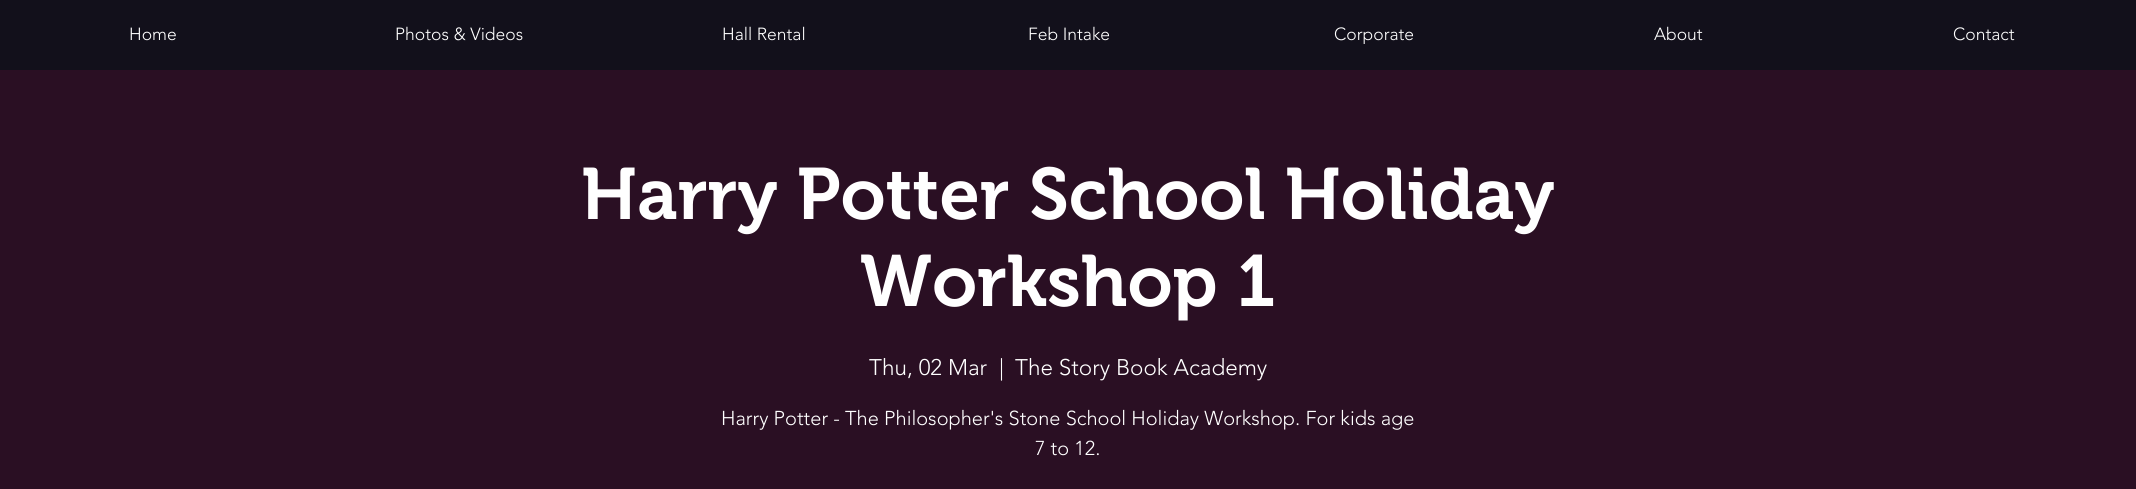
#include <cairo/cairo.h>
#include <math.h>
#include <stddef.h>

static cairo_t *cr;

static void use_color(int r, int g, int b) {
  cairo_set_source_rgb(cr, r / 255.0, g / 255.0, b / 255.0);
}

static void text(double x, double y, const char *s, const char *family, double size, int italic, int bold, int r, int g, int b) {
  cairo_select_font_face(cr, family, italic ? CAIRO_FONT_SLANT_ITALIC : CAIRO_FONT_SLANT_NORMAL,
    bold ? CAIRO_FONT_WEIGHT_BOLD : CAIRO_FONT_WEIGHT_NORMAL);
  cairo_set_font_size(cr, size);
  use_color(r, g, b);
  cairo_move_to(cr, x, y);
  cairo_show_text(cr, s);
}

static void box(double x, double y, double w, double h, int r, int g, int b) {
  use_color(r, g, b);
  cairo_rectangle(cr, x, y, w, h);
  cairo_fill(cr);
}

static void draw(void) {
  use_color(18, 16, 27);
  cairo_paint(cr);
  box(0, 70, 2136, 419, 42, 15, 35);
  text(129, 40, "Home", "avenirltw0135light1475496 Light", 17.5, 0, 0, 255, 255, 255);
  text(395, 40, "Photos & Videos", "avenirltw0135light1475496 Light", 17.5, 0, 0, 255, 255, 255);
  text(722, 40, "Hall Rental", "avenirltw0135light1475496 Light", 17.5, 0, 0, 255, 255, 255);
  text(1028, 40, "Feb Intake", "avenirltw0135light1475496 Light", 17.5, 0, 0, 255, 255, 255);
  text(1334, 40, "Corporate", "avenirltw0135light1475496 Light", 17.5, 0, 0, 255, 255, 255);
  text(1654, 40, "About", "avenirltw0135light1475496 Light", 17.5, 0, 0, 255, 255, 255);
  text(1953, 40, "Contact", "avenirltw0135light1475496 Light", 17.5, 0, 0, 255, 255, 255);
  text(581, 219, "Harry Potter School Holiday", "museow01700 SemiBold", 72.5, 0, 0, 255, 255, 255);
  text(860, 306, "Workshop 1", "museow01700 SemiBold", 72.5, 0, 0, 255, 255, 255);
  text(869, 375, "Thu, 02 Mar", "avenirltw0135light1475496 Light", 22.5, 0, 0, 255, 255, 255);
  text(999, 375, "|", "avenirltw0135light1475496 Light", 22.5, 0, 0, 255, 255, 255);
  text(1015, 375, "The Story Book Academy", "avenirltw0135light1475496 Light", 22.5, 0, 0, 255, 255, 255);
  text(721, 425, "Harry Potter - The Philosopher's Stone School Holiday Workshop. For kids age", "avenirltw0135light1475496 Light", 20, 0, 0, 255, 255, 255);
  text(1035, 455, "7 to 12.", "avenirltw0135light1475496 Light", 20, 0, 0, 255, 255, 255);
}

int main(void) {
  cairo_surface_t *surface = cairo_image_surface_create(CAIRO_FORMAT_RGB24, 2136, 489);
  cr = cairo_create(surface);
  cairo_font_options_t *options = cairo_font_options_create();
  cairo_font_options_set_hint_metrics(options, CAIRO_HINT_METRICS_OFF);
  cairo_font_options_set_hint_style(options, CAIRO_HINT_STYLE_NONE);
  cairo_set_font_options(cr, options);
  cairo_set_miter_limit(cr, 4);
  draw();
  cairo_surface_write_to_png(surface, "out.png");
  cairo_font_options_destroy(options);
  cairo_destroy(cr);
  cairo_surface_destroy(surface);
  return 0;
}
